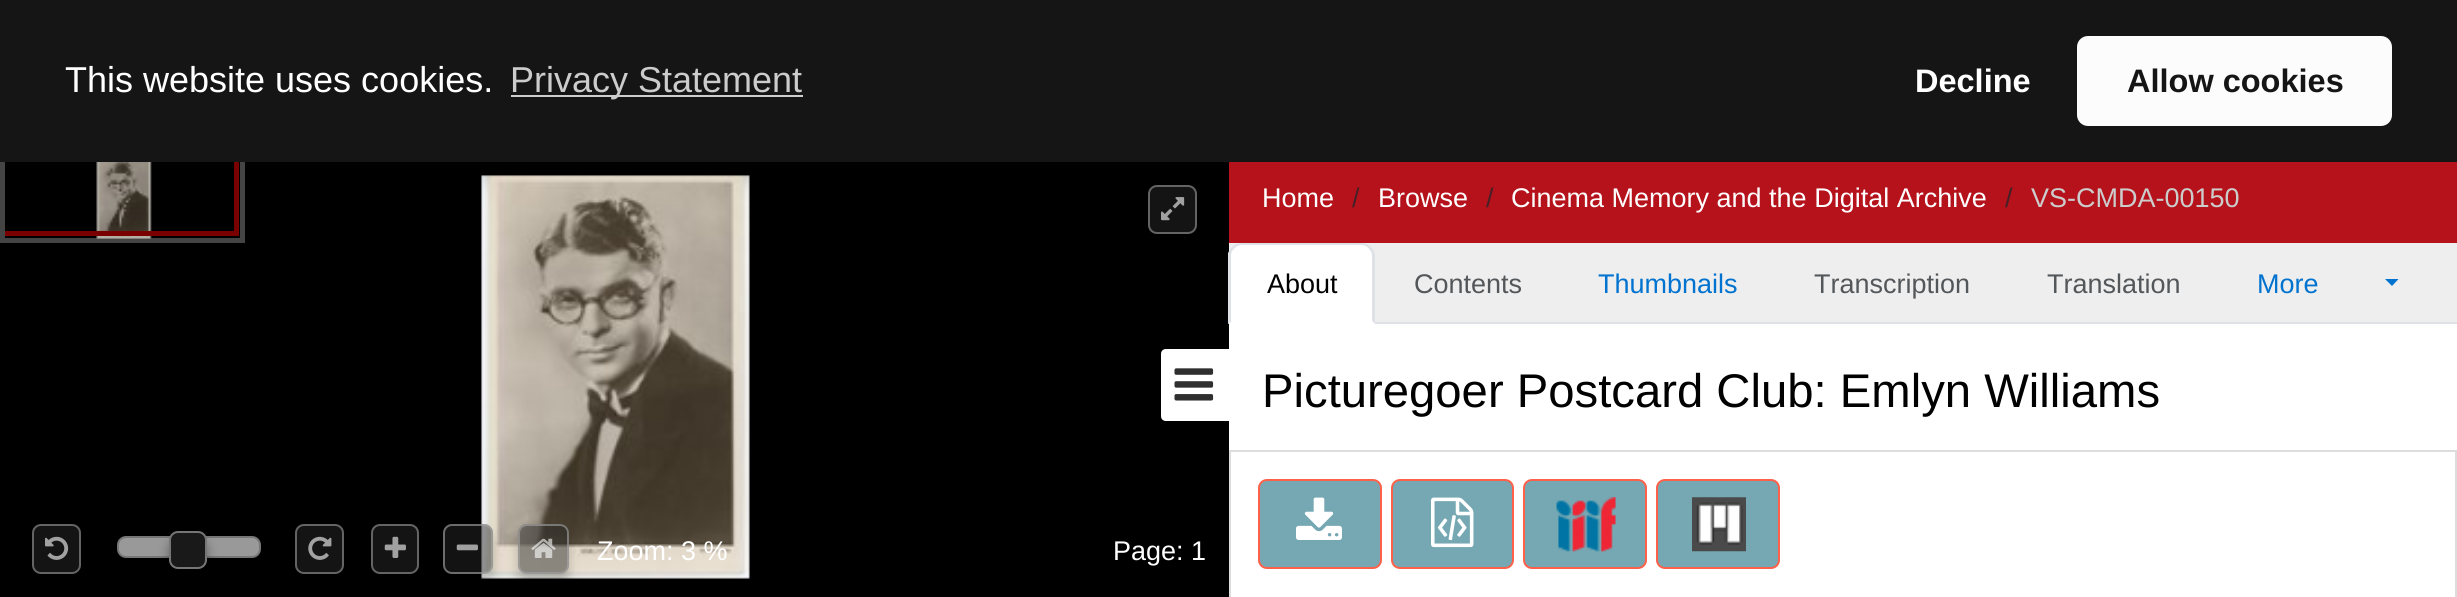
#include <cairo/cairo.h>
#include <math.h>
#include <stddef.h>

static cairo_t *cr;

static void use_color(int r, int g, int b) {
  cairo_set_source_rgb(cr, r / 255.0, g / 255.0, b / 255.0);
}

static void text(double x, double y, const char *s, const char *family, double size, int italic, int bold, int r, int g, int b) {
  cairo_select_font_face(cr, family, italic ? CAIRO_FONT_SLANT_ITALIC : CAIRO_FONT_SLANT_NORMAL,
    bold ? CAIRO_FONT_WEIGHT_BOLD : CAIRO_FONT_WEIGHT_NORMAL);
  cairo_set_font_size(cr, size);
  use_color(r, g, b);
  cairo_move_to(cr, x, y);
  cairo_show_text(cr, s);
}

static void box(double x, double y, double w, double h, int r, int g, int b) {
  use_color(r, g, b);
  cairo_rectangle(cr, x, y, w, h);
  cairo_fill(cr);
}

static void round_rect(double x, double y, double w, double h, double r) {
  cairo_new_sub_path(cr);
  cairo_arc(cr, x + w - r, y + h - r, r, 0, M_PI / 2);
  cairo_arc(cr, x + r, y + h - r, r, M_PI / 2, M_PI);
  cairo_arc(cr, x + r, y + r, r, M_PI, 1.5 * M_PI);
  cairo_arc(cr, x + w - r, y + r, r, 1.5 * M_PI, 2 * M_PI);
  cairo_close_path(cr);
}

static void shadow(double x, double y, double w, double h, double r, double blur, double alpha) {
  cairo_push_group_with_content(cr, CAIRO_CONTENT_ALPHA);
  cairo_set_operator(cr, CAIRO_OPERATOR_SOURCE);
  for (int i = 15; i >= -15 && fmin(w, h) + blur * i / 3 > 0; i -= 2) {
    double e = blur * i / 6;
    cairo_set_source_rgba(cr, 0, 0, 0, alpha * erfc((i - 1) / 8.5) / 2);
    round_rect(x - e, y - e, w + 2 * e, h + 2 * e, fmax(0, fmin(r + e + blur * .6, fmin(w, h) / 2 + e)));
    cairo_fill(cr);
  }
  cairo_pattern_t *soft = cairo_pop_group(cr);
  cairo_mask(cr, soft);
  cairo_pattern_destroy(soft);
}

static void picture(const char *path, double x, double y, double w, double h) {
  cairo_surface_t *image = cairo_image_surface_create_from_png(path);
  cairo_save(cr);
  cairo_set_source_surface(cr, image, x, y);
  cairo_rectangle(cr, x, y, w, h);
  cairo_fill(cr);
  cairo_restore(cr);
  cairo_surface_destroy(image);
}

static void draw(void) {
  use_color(0, 0, 0);
  cairo_paint(cr);
  cairo_rectangle(cr, 2.5, 155.5, 240, 85);
  use_color(68, 68, 68);
  cairo_set_line_width(cr, 5);
  cairo_stroke(cr);
  picture("img_06.png", 96, 162, 56, 77);
  cairo_save(cr);
  cairo_rectangle(cr, 5, 158, 236, 81);
  cairo_clip(cr);
  cairo_rectangle(cr, 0.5, 155.5, 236, 78);
  use_color(122, 0, 0);
  cairo_stroke(cr);
  cairo_restore(cr);
  box(0, 0, 2457, 162, 21, 21, 21);
  box(511, 95, 292, 2, 206, 206, 206);
  use_color(252, 252, 252);
  round_rect(2077, 36, 315, 90, 11);
  cairo_fill(cr);
  box(1229, 243, 1228, 79, 238, 238, 238);
  box(1229, 162, 1228, 81, 181, 18, 27);
  use_color(255, 255, 255);
  cairo_new_path(cr);
  cairo_move_to(cr, 1166, 349);
  cairo_line_to(cr, 1229, 349);
  cairo_line_to(cr, 1229, 421);
  cairo_line_to(cr, 1166, 421);
  cairo_curve_to(cr, 1163, 421, 1161, 419, 1161, 416);
  cairo_line_to(cr, 1161, 354);
  cairo_curve_to(cr, 1161, 351, 1163, 349, 1166, 349);
  cairo_close_path(cr);
  cairo_fill(cr);
  picture("img_01.png", 1174, 368, 40, 33);
  box(1375, 322, 1082, 2, 222, 226, 230);
  use_color(255, 255, 255);
  cairo_new_path(cr);
  cairo_move_to(cr, 1243, 243);
  cairo_line_to(cr, 1361, 243);
  cairo_curve_to(cr, 1368.5, 243, 1375, 249.5, 1375, 257);
  cairo_line_to(cr, 1375, 324);
  cairo_line_to(cr, 1229, 324);
  cairo_line_to(cr, 1229, 257);
  cairo_curve_to(cr, 1229, 249.5, 1235.5, 243, 1243, 243);
  cairo_close_path(cr);
  cairo_fill(cr);
  use_color(222, 226, 230);
  cairo_new_path(cr);
  cairo_move_to(cr, 1242, 243);
  cairo_curve_to(cr, 1238, 243, 1235, 244, 1232, 247);
  cairo_line_to(cr, 1234, 249);
  cairo_curve_to(cr, 1236, 246, 1239, 245, 1242, 245);
  cairo_line_to(cr, 1361, 245);
  cairo_curve_to(cr, 1364, 245, 1367, 246, 1369, 249);
  cairo_line_to(cr, 1371, 247);
  cairo_curve_to(cr, 1368, 244, 1365, 243, 1361, 243);
  cairo_close_path(cr);
  cairo_fill(cr);
  cairo_new_path(cr);
  cairo_move_to(cr, 1375, 254);
  cairo_line_to(cr, 1375, 324);
  cairo_line_to(cr, 1372, 321);
  cairo_line_to(cr, 1372, 256);
  cairo_curve_to(cr, 1372, 253, 1371, 251, 1369, 249);
  cairo_line_to(cr, 1371, 247);
  cairo_curve_to(cr, 1373, 249, 1374, 251, 1375, 254);
  cairo_close_path(cr);
  cairo_fill(cr);
  use_color(255, 255, 255);
  cairo_new_path(cr);
  cairo_move_to(cr, 1375, 324);
  cairo_line_to(cr, 1372, 321);
  cairo_line_to(cr, 1372, 322);
  cairo_line_to(cr, 1231, 322);
  cairo_line_to(cr, 1228, 324);
  cairo_close_path(cr);
  cairo_fill(cr);
  use_color(222, 226, 230);
  cairo_new_path(cr);
  cairo_move_to(cr, 1228, 324);
  cairo_line_to(cr, 1228, 253);
  cairo_curve_to(cr, 1229, 251, 1231, 248, 1232, 247);
  cairo_line_to(cr, 1234, 249);
  cairo_curve_to(cr, 1232, 250, 1231, 253, 1231, 256);
  cairo_line_to(cr, 1231, 322);
  cairo_close_path(cr);
  cairo_fill(cr);
  use_color(0, 114, 207);
  cairo_new_path(cr);
  cairo_move_to(cr, 2385, 279);
  cairo_line_to(cr, 2398.5, 279);
  cairo_line_to(cr, 2392, 286);
  cairo_close_path(cr);
  cairo_fill(cr);
  box(1229, 324, 1228, 126, 255, 255, 255);
  cairo_rectangle(cr, 1230, 451, 1226, 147);
  cairo_fill_preserve(cr);
  use_color(221, 221, 221);
  cairo_set_line_width(cr, 2);
  cairo_stroke(cr);
  use_color(117, 168, 179);
  round_rect(1259, 480, 122, 88, 8);
  cairo_fill_preserve(cr);
  use_color(255, 96, 74);
  cairo_stroke(cr);
  picture("img_02.png", 1296, 497, 46, 43);
  use_color(117, 168, 179);
  round_rect(1392, 480, 121, 88, 8);
  cairo_fill_preserve(cr);
  use_color(255, 96, 74);
  cairo_stroke(cr);
  picture("img_03.png", 1431, 497, 43, 51);
  use_color(117, 168, 179);
  round_rect(1524, 480, 122, 88, 8);
  cairo_fill_preserve(cr);
  use_color(255, 96, 74);
  cairo_stroke(cr);
  picture("img_04.png", 1556, 497, 60, 55);
  use_color(117, 168, 179);
  round_rect(1657, 480, 122, 88, 8);
  cairo_fill_preserve(cr);
  use_color(255, 96, 74);
  cairo_stroke(cr);
  picture("img_05.png", 1692, 497, 54, 55);
  picture("img_07.png", 481, 175, 269, 404);
  use_color(20, 20, 20);
  round_rect(1149, 186, 47, 47, 8);
  cairo_fill_preserve(cr);
  use_color(100, 100, 100);
  cairo_stroke(cr);
  picture("img_08.png", 1161, 197, 24, 24);
  use_color(20, 20, 20);
  round_rect(33, 525, 47, 48, 8);
  cairo_fill_preserve(cr);
  use_color(100, 100, 100);
  cairo_stroke(cr);
  picture("img_09.png", 45, 536, 24, 24);
  use_color(153, 153, 153);
  round_rect(118, 537, 142, 20, 8);
  cairo_fill_preserve(cr);
  use_color(118, 118, 118);
  cairo_stroke(cr);
  use_color(0, 0, 0);
  shadow(169, 540, 38, 38, 9, 5.5, 0.35);
  use_color(25, 25, 25);
  round_rect(170, 532, 36, 36, 8);
  cairo_fill_preserve(cr);
  use_color(118, 118, 118);
  cairo_stroke(cr);
  use_color(20, 20, 20);
  round_rect(296, 525, 47, 48, 8);
  cairo_fill_preserve(cr);
  use_color(100, 100, 100);
  cairo_stroke(cr);
  picture("img_10.png", 308, 536, 24, 24);
  use_color(20, 20, 20);
  round_rect(372, 525, 46, 48, 8);
  cairo_fill_preserve(cr);
  use_color(100, 100, 100);
  cairo_stroke(cr);
  picture("img_11.png", 384, 536, 22, 22);
  cairo_save(cr);
  cairo_set_fill_rule(cr, CAIRO_FILL_RULE_EVEN_ODD);
  cairo_new_path(cr);
  cairo_move_to(cr, 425, 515);
  cairo_line_to(cr, 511, 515);
  cairo_line_to(cr, 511, 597);
  cairo_line_to(cr, 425, 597);
  cairo_close_path(cr);
  cairo_move_to(cr, 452, 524);
  cairo_line_to(cr, 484, 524);
  cairo_curve_to(cr, 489, 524, 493, 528, 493, 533);
  cairo_line_to(cr, 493, 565);
  cairo_curve_to(cr, 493, 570, 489, 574, 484, 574);
  cairo_line_to(cr, 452, 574);
  cairo_curve_to(cr, 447, 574, 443, 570, 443, 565);
  cairo_line_to(cr, 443, 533);
  cairo_curve_to(cr, 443, 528, 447, 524, 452, 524);
  cairo_close_path(cr);
  cairo_clip(cr);
  use_color(0, 0, 0);
  shadow(443, 533, 50, 50, 9, 5.5, 0.21);
  cairo_restore(cr);
  cairo_set_source_rgba(cr, 0.161, 0.161, 0.161, 0.48);
  round_rect(443, 524, 50, 50, 9);
  cairo_fill(cr);
  round_rect(444, 525, 48, 48, 8);
  cairo_set_source_rgba(cr, 0.655, 0.655, 0.655, 0.6);
  cairo_stroke(cr);
  picture("img_12.png", 456, 544, 22, 7);
  cairo_save(cr);
  cairo_set_fill_rule(cr, CAIRO_FILL_RULE_EVEN_ODD);
  cairo_new_path(cr);
  cairo_move_to(cr, 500, 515);
  cairo_line_to(cr, 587, 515);
  cairo_line_to(cr, 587, 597);
  cairo_line_to(cr, 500, 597);
  cairo_close_path(cr);
  cairo_move_to(cr, 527, 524);
  cairo_line_to(cr, 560, 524);
  cairo_curve_to(cr, 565, 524, 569, 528, 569, 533);
  cairo_line_to(cr, 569, 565);
  cairo_curve_to(cr, 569, 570, 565, 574, 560, 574);
  cairo_line_to(cr, 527, 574);
  cairo_curve_to(cr, 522, 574, 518, 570, 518, 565);
  cairo_line_to(cr, 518, 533);
  cairo_curve_to(cr, 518, 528, 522, 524, 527, 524);
  cairo_close_path(cr);
  cairo_clip(cr);
  use_color(0, 0, 0);
  shadow(518, 533, 51, 50, 9, 5.5, 0.21);
  cairo_restore(cr);
  cairo_set_source_rgba(cr, 0.161, 0.161, 0.161, 0.48);
  round_rect(518, 524, 51, 50, 9);
  cairo_fill(cr);
  round_rect(519, 525, 49, 48, 8);
  cairo_set_source_rgba(cr, 0.655, 0.655, 0.655, 0.6);
  cairo_stroke(cr);
  picture("img_13.png", 531, 538, 25, 20);
  text(65, 92, "This website uses cookies.", "Liberation Sans", 36, 0, 0, 255, 255, 255);
  text(510, 92, "Privacy Statement", "Liberation Sans", 36, 0, 0, 204, 204, 204);
  text(1915, 92, "Decline", "Liberation Sans", 32.5, 0, 1, 255, 255, 255);
  text(2127, 92, "Allow cookies", "Liberation Sans", 32.5, 0, 1, 21, 21, 21);
  text(1262, 207, "Home", "Liberation Sans", 27, 0, 0, 255, 255, 255);
  text(1352, 207, "/", "Liberation Sans", 27, 0, 0, 70, 32, 38);
  text(1378, 207, "Browse", "Liberation Sans", 27, 0, 0, 255, 255, 255);
  text(1486, 207, "/", "Liberation Sans", 27, 0, 0, 70, 32, 38);
  text(1511, 207, "Cinema Memory and the Digital Archive", "Liberation Sans", 27, 0, 0, 255, 255, 255);
  text(2005, 207, "/", "Liberation Sans", 27, 0, 0, 70, 32, 38);
  text(2031, 207, "VS-CMDA-00150", "Liberation Sans", 27, 0, 0, 204, 204, 204);
  text(1267, 293, "About", "Liberation Sans", 27, 0, 0, 0, 0, 0);
  text(1414, 293, "Contents", "Liberation Sans", 27, 0, 0, 84, 87, 90);
  text(1598, 293, "Thumbnails", "Liberation Sans", 27, 0, 0, 0, 114, 207);
  text(1814, 293, "Transcription", "Liberation Sans", 27, 0, 0, 84, 87, 90);
  text(2047, 293, "Translation", "Liberation Sans", 27, 0, 0, 84, 87, 90);
  text(2257, 293, "More", "Liberation Sans", 27, 0, 0, 0, 114, 207);
  text(1262, 407, "Picturegoer Postcard Club: Emlyn Williams", "Liberation Sans", 47.25, 0, 0, 0, 0, 0);
  text(597, 560, "Zoom: 3 %", "Liberation Sans", 27, 0, 0, 255, 255, 255);
  text(1113, 560, "Page: 1", "Liberation Sans", 27, 0, 0, 255, 255, 255);
}

int main(void) {
  cairo_surface_t *surface = cairo_image_surface_create(CAIRO_FORMAT_RGB24, 2457, 597);
  cr = cairo_create(surface);
  cairo_font_options_t *options = cairo_font_options_create();
  cairo_font_options_set_hint_metrics(options, CAIRO_HINT_METRICS_OFF);
  cairo_font_options_set_hint_style(options, CAIRO_HINT_STYLE_NONE);
  cairo_set_font_options(cr, options);
  cairo_set_miter_limit(cr, 4);
  draw();
  cairo_surface_write_to_png(surface, "out.png");
  cairo_font_options_destroy(options);
  cairo_destroy(cr);
  cairo_surface_destroy(surface);
  return 0;
}
